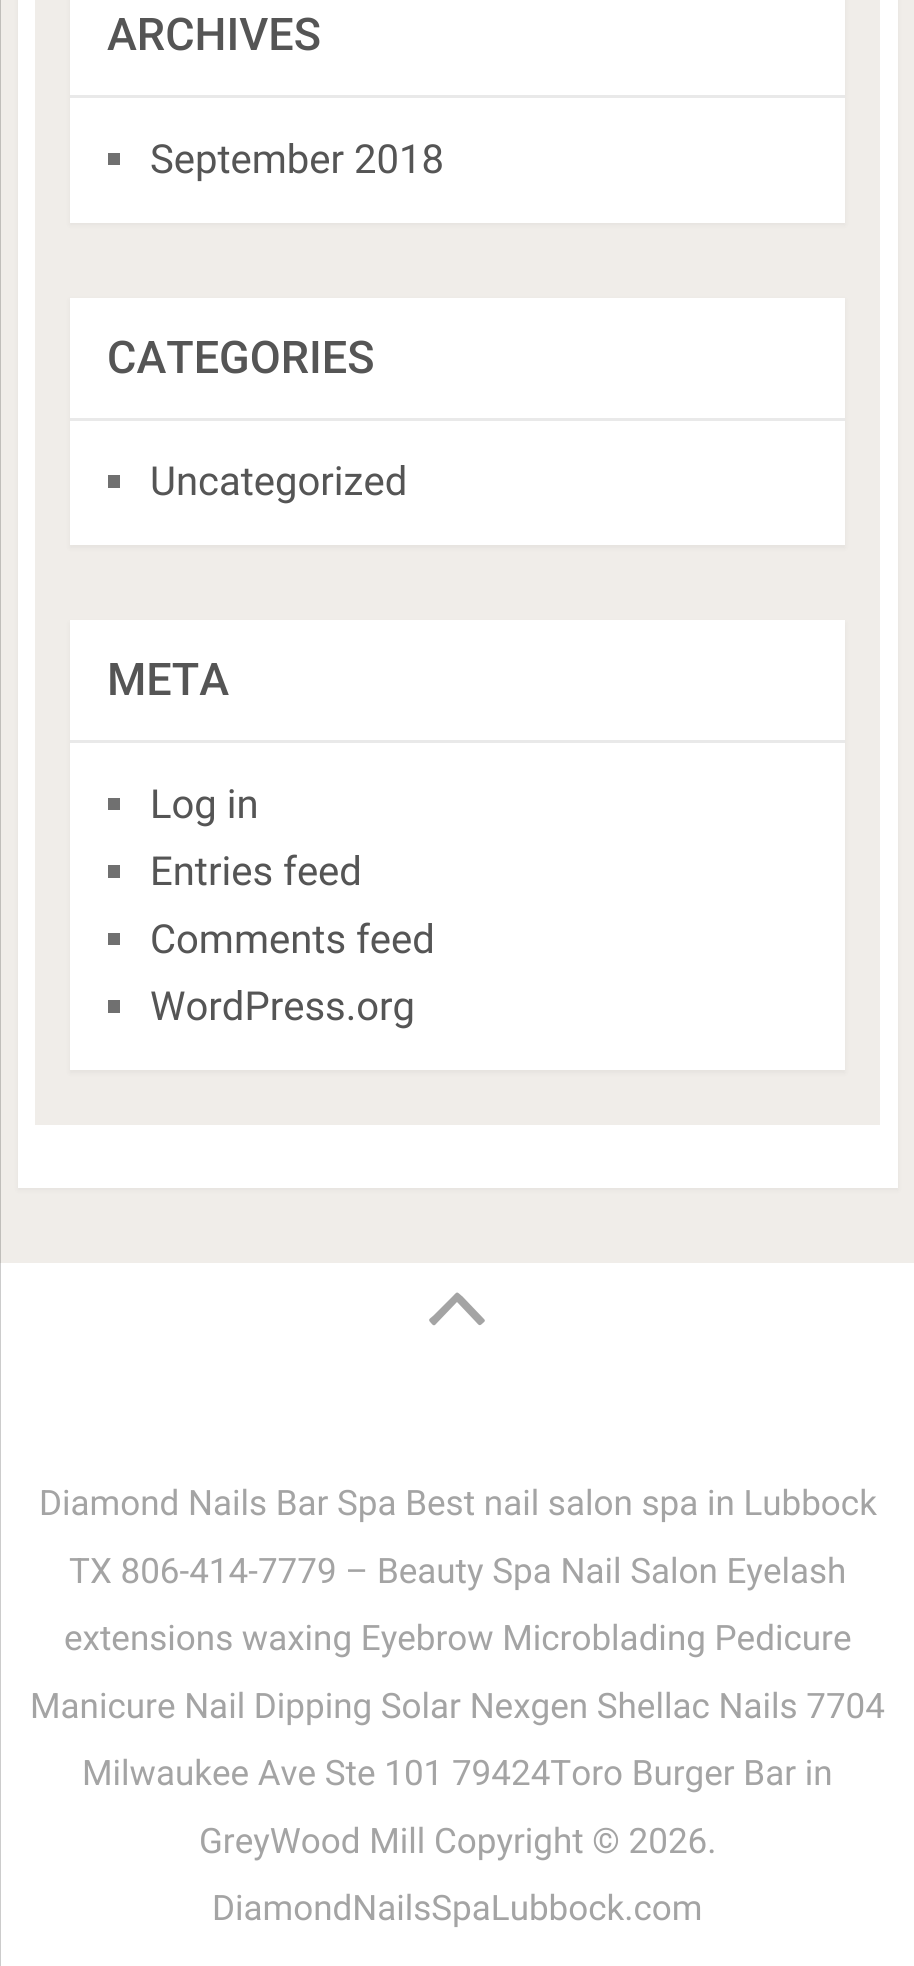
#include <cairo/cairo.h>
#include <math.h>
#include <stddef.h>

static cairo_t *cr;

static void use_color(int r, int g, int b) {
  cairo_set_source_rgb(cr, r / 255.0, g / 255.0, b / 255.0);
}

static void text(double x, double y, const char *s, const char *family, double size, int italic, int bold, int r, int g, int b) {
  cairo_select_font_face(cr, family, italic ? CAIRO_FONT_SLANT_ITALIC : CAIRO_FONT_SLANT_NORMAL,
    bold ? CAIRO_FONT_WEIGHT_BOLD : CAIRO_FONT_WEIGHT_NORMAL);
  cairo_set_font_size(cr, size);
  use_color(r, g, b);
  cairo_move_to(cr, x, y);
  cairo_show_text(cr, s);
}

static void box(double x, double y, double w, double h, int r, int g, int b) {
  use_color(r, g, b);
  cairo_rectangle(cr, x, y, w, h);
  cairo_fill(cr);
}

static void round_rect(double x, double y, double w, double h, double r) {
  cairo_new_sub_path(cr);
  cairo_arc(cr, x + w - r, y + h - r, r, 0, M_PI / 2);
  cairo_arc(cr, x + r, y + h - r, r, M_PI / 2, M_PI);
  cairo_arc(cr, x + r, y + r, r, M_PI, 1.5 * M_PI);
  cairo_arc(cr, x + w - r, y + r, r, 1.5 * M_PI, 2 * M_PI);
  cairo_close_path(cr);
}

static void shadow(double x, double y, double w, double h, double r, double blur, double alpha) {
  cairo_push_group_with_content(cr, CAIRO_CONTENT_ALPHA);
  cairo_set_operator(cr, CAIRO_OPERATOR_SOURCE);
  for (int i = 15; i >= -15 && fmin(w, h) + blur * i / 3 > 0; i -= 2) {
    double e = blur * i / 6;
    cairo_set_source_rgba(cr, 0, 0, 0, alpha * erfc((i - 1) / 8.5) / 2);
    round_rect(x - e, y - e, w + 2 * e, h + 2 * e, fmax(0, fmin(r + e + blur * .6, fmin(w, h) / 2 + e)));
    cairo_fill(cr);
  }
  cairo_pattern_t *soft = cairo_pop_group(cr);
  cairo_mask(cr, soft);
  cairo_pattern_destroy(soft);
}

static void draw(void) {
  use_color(240, 237, 233);
  cairo_paint(cr);
  box(0, 0, 1, 1263, 192, 190, 186);
  use_color(0, 0, 0);
  shadow(18, -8, 880, 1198, 0, 2.5, 0.05);
  box(18, 0, 880, 1188, 255, 255, 255);
  box(35, 0, 845, 1125, 240, 237, 233);
  use_color(0, 0, 0);
  shadow(70, -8, 775, 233, 0, 2.5, 0.05);
  box(70, 0, 775, 223, 255, 255, 255);
  box(70, 95, 775, 3, 233, 233, 233);
  box(108, 153, 12, 12, 112, 112, 112);
  use_color(0, 0, 0);
  shadow(70, 300, 775, 248, 0, 2.5, 0.05);
  box(70, 298, 775, 247, 255, 255, 255);
  box(70, 418, 775, 3, 233, 233, 233);
  box(108, 475, 12, 13, 112, 112, 112);
  use_color(0, 0, 0);
  shadow(70, 623, 775, 450, 0, 2.5, 0.05);
  box(70, 620, 775, 450, 255, 255, 255);
  box(70, 740, 775, 3, 233, 233, 233);
  box(108, 798, 12, 12, 112, 112, 112);
  box(108, 865, 12, 13, 112, 112, 112);
  box(108, 933, 12, 12, 112, 112, 112);
  box(108, 1000, 12, 13, 112, 112, 112);
  box(1, 1263, 913, 703, 255, 255, 255);
  box(0, 1263, 1, 703, 204, 204, 204);
  use_color(164, 164, 164);
  cairo_new_path(cr);
  cairo_move_to(cr, 484, 1319);
  cairo_curve_to(cr, 486, 1321, 484, 1322, 483, 1323);
  cairo_curve_to(cr, 479, 1327, 479, 1325, 475, 1321);
  cairo_line_to(cr, 457, 1302);
  cairo_line_to(cr, 435, 1325);
  cairo_curve_to(cr, 433, 1326, 432, 1324, 431, 1323);
  cairo_curve_to(cr, 427, 1319, 430, 1319, 434, 1315);
  cairo_line_to(cr, 452, 1297);
  cairo_curve_to(cr, 458, 1291, 456, 1291, 463, 1297);
  cairo_close_path(cr);
  cairo_fill(cr);
  text(107, 50, "ARCHIVES", "Roboto Medium", 45, 0, 0, 85, 85, 85);
  text(150, 173, "September 2018", "Roboto", 40, 0, 0, 85, 85, 85);
  text(107, 373, "CATEGORIES", "Roboto Medium", 45, 0, 0, 85, 85, 85);
  text(150, 495, "Uncategorized", "Roboto", 40, 0, 0, 85, 85, 85);
  text(107, 695, "META", "Roboto Medium", 45, 0, 0, 85, 85, 85);
  text(150, 818, "Log in", "Roboto", 40, 0, 0, 85, 85, 85);
  text(150, 885, "Entries feed", "Roboto", 40, 0, 0, 85, 85, 85);
  text(150, 953, "Comments feed", "Roboto", 40, 0, 0, 85, 85, 85);
  text(150, 1020, "WordPress.org", "Roboto", 40, 0, 0, 85, 85, 85);
  text(39, 1515, "Diamond Nails Bar Spa Best nail salon spa in Lubbock", "Roboto", 35, 0, 0, 164, 164, 164);
  text(69, 1583, "TX 806-414-7779 – Beauty Spa Nail Salon Eyelash", "Roboto", 35, 0, 0, 164, 164, 164);
  text(64, 1650, "extensions waxing Eyebrow Microblading Pedicure", "Roboto", 35, 0, 0, 164, 164, 164);
  text(30, 1718, "Manicure Nail Dipping Solar Nexgen Shellac Nails 7704", "Roboto", 35, 0, 0, 164, 164, 164);
  text(82, 1785, "Milwaukee Ave Ste 101 79424Toro Burger Bar in", "Roboto", 35, 0, 0, 164, 164, 164);
  text(199, 1853, "GreyWood Mill Copyright © 2026.", "Roboto", 35, 0, 0, 164, 164, 164);
  text(212, 1920, "DiamondNailsSpaLubbock.com", "Roboto", 35, 0, 0, 164, 164, 164);
}

int main(void) {
  cairo_surface_t *surface = cairo_image_surface_create(CAIRO_FORMAT_RGB24, 914, 1966);
  cr = cairo_create(surface);
  cairo_font_options_t *options = cairo_font_options_create();
  cairo_font_options_set_hint_metrics(options, CAIRO_HINT_METRICS_OFF);
  cairo_font_options_set_hint_style(options, CAIRO_HINT_STYLE_NONE);
  cairo_set_font_options(cr, options);
  cairo_set_miter_limit(cr, 4);
  draw();
  cairo_surface_write_to_png(surface, "out.png");
  cairo_font_options_destroy(options);
  cairo_destroy(cr);
  cairo_surface_destroy(surface);
  return 0;
}
